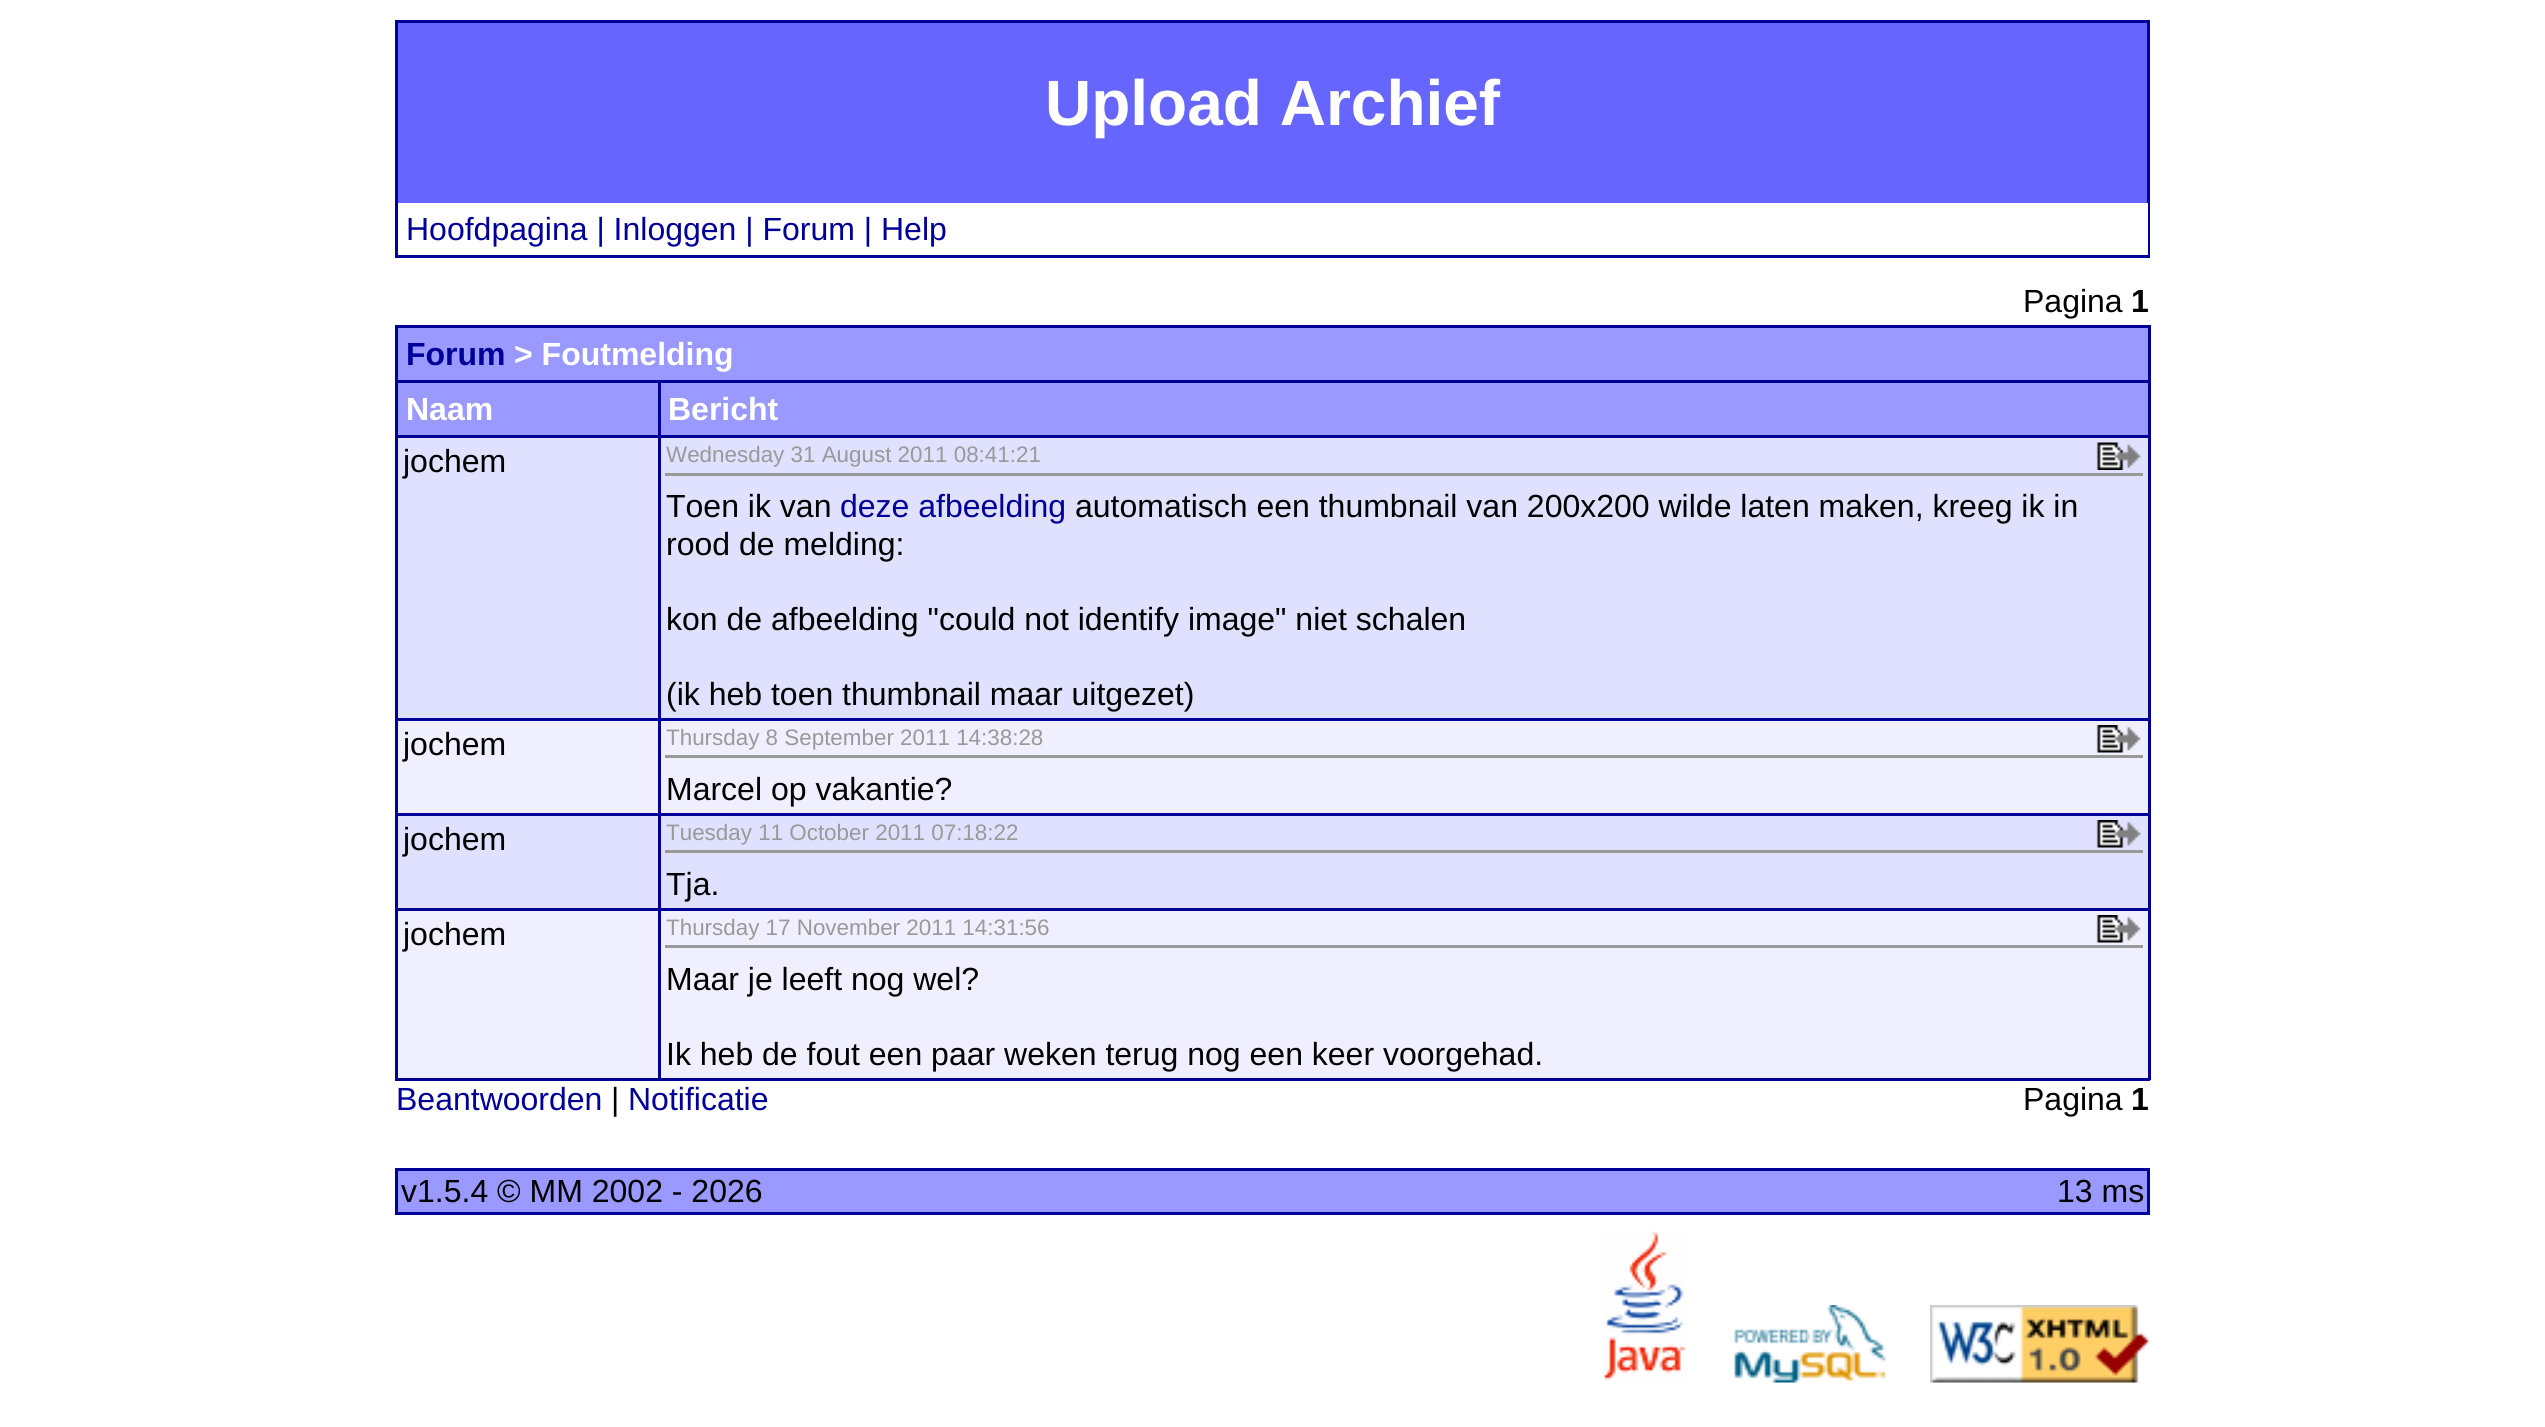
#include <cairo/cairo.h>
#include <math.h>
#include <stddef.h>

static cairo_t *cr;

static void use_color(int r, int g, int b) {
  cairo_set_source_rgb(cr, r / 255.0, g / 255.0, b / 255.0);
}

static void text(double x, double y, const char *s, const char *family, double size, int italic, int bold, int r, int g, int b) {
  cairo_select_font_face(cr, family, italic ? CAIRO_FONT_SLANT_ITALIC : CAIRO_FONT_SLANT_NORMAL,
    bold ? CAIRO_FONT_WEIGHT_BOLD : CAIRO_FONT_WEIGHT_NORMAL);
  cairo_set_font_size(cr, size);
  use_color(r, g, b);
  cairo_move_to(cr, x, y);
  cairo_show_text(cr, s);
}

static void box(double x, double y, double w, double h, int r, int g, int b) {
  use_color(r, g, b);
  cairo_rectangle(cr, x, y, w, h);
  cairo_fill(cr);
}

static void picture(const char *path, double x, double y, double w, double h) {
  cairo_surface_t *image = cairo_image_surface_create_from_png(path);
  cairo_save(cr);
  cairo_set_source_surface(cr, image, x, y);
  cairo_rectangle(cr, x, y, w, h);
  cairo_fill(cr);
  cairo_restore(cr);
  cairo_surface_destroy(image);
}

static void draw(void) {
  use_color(255, 255, 255);
  cairo_paint(cr);
  box(398, 23, 1749, 180, 102, 102, 255);
  cairo_rectangle(cr, 396.5, 21.5, 1752, 235);
  use_color(0, 0, 153);
  cairo_set_line_width(cr, 3);
  cairo_stroke(cr);
  box(2147, 203, 1, 52, 255, 255, 255);
  box(395, 325, 1755, 3, 0, 0, 153);
  box(2148, 325, 3, 755, 0, 0, 153);
  box(395, 1078, 1755, 3, 0, 0, 153);
  box(395, 325, 3, 755, 0, 0, 153);
  box(398, 328, 1750, 52, 153, 153, 255);
  box(398, 383, 260, 52, 153, 153, 255);
  box(658, 380, 1492, 3, 0, 0, 153);
  box(658, 435, 1492, 3, 0, 0, 153);
  box(398, 438, 1750, 280, 224, 224, 255);
  box(658, 718, 1492, 3, 0, 0, 153);
  box(398, 721, 1750, 92, 239, 239, 255);
  box(658, 813, 1492, 3, 0, 0, 153);
  box(398, 816, 1750, 92, 224, 224, 255);
  box(658, 908, 1492, 3, 0, 0, 153);
  box(398, 911, 1750, 167, 239, 239, 255);
  box(658, 908, 3, 172, 0, 0, 153);
  box(395, 908, 265, 3, 0, 0, 153);
  box(658, 813, 3, 97, 0, 0, 153);
  box(395, 813, 265, 3, 0, 0, 153);
  box(658, 718, 3, 97, 0, 0, 153);
  box(395, 718, 265, 3, 0, 0, 153);
  box(658, 435, 3, 285, 0, 0, 153);
  box(395, 435, 265, 3, 0, 0, 153);
  box(658, 380, 3, 58, 0, 0, 153);
  box(395, 380, 265, 3, 0, 0, 153);
  box(661, 383, 1487, 52, 153, 153, 255);
  picture("img_01.png", 2096, 442, 45, 28);
  box(665, 473, 1478, 3, 153, 153, 153);
  picture("img_02.png", 2096, 725, 45, 28);
  box(665, 755, 1478, 3, 153, 153, 153);
  picture("img_03.png", 2096, 820, 45, 28);
  box(665, 850, 1478, 3, 153, 153, 153);
  picture("img_02.png", 2096, 915, 45, 28);
  box(665, 945, 1478, 3, 153, 153, 153);
  use_color(153, 153, 255);
  cairo_rectangle(cr, 396.5, 1169.5, 1752, 44);
  cairo_fill_preserve(cr);
  use_color(0, 0, 153);
  cairo_stroke(cr);
  picture("img_04.png", 1604, 1231, 82, 150);
  picture("img_05.png", 1734, 1305, 152, 78);
  picture("img_06.png", 1930, 1305, 220, 78);
  text(1045, 125, "Upload Archief", "Liberation Sans", 64, 0, 1, 255, 255, 255);
  text(406, 240, "Hoofdpagina | Inloggen | Forum | Help", "Liberation Sans", 32, 0, 0, 0, 0, 153);
  text(2023, 312, "Pagina", "Liberation Sans", 32, 0, 0, 0, 0, 0);
  text(2131, 312, "1", "Liberation Sans", 32, 0, 1, 0, 0, 0);
  text(406, 365, "Forum", "Liberation Sans", 32, 0, 1, 0, 0, 153);
  text(514, 365, "> Foutmelding", "Liberation Sans", 32, 0, 1, 255, 255, 255);
  text(406, 420, "Naam", "Liberation Sans", 32, 0, 1, 255, 255, 255);
  text(668, 420, "Bericht", "Liberation Sans", 32, 0, 1, 255, 255, 255);
  text(403, 472, "jochem", "Liberation Sans", 32, 0, 0, 0, 0, 0);
  text(666, 462, "Wednesday 31 August 2011 08:41:21", "Liberation Sans", 22.4, 0, 0, 153, 153, 153);
  text(666, 517, "Toen ik van", "Liberation Sans", 32, 0, 0, 0, 0, 0);
  text(840, 517, "deze afbeelding", "Liberation Sans", 32, 0, 0, 0, 0, 153);
  text(1075, 517, "automatisch een thumbnail van 200x200 wilde laten maken, kreeg ik in", "Liberation Sans", 32, 0, 0, 0, 0, 0);
  text(666, 555, "rood de melding:", "Liberation Sans", 32, 0, 0, 0, 0, 0);
  text(666, 630, "kon de afbeelding \"could not identify image\" niet schalen", "Liberation Sans", 32, 0, 0, 0, 0, 0);
  text(666, 705, "(ik heb toen thumbnail maar uitgezet)", "Liberation Sans", 32, 0, 0, 0, 0, 0);
  text(403, 755, "jochem", "Liberation Sans", 32, 0, 0, 0, 0, 0);
  text(666, 745, "Thursday 8 September 2011 14:38:28", "Liberation Sans", 22.4, 0, 0, 153, 153, 153);
  text(666, 800, "Marcel op vakantie?", "Liberation Sans", 32, 0, 0, 0, 0, 0);
  text(403, 850, "jochem", "Liberation Sans", 32, 0, 0, 0, 0, 0);
  text(666, 840, "Tuesday 11 October 2011 07:18:22", "Liberation Sans", 22.4, 0, 0, 153, 153, 153);
  text(666, 895, "Tja.", "Liberation Sans", 32, 0, 0, 0, 0, 0);
  text(403, 945, "jochem", "Liberation Sans", 32, 0, 0, 0, 0, 0);
  text(666, 935, "Thursday 17 November 2011 14:31:56", "Liberation Sans", 22.4, 0, 0, 153, 153, 153);
  text(666, 990, "Maar je leeft nog wel?", "Liberation Sans", 32, 0, 0, 0, 0, 0);
  text(666, 1065, "Ik heb de fout een paar weken terug nog een keer voorgehad.", "Liberation Sans", 32, 0, 0, 0, 0, 0);
  text(396, 1110, "Beantwoorden", "Liberation Sans", 32, 0, 0, 0, 0, 153);
  text(611, 1110, "|", "Liberation Sans", 32, 0, 0, 0, 0, 0);
  text(628, 1110, "Notificatie", "Liberation Sans", 32, 0, 0, 0, 0, 153);
  text(2023, 1110, "Pagina", "Liberation Sans", 32, 0, 0, 0, 0, 0);
  text(2131, 1110, "1", "Liberation Sans", 32, 0, 1, 0, 0, 0);
  text(401, 1202, "v1.5.4 © MM 2002 - 2026", "Liberation Sans", 32, 0, 0, 0, 0, 0);
  text(2057, 1202, "13 ms", "Liberation Sans", 32, 0, 0, 0, 0, 0);
}

int main(void) {
  cairo_surface_t *surface = cairo_image_surface_create(CAIRO_FORMAT_RGB24, 2545, 1427);
  cr = cairo_create(surface);
  cairo_font_options_t *options = cairo_font_options_create();
  cairo_font_options_set_hint_metrics(options, CAIRO_HINT_METRICS_OFF);
  cairo_font_options_set_hint_style(options, CAIRO_HINT_STYLE_NONE);
  cairo_set_font_options(cr, options);
  cairo_set_miter_limit(cr, 4);
  draw();
  cairo_surface_write_to_png(surface, "out.png");
  cairo_font_options_destroy(options);
  cairo_destroy(cr);
  cairo_surface_destroy(surface);
  return 0;
}
